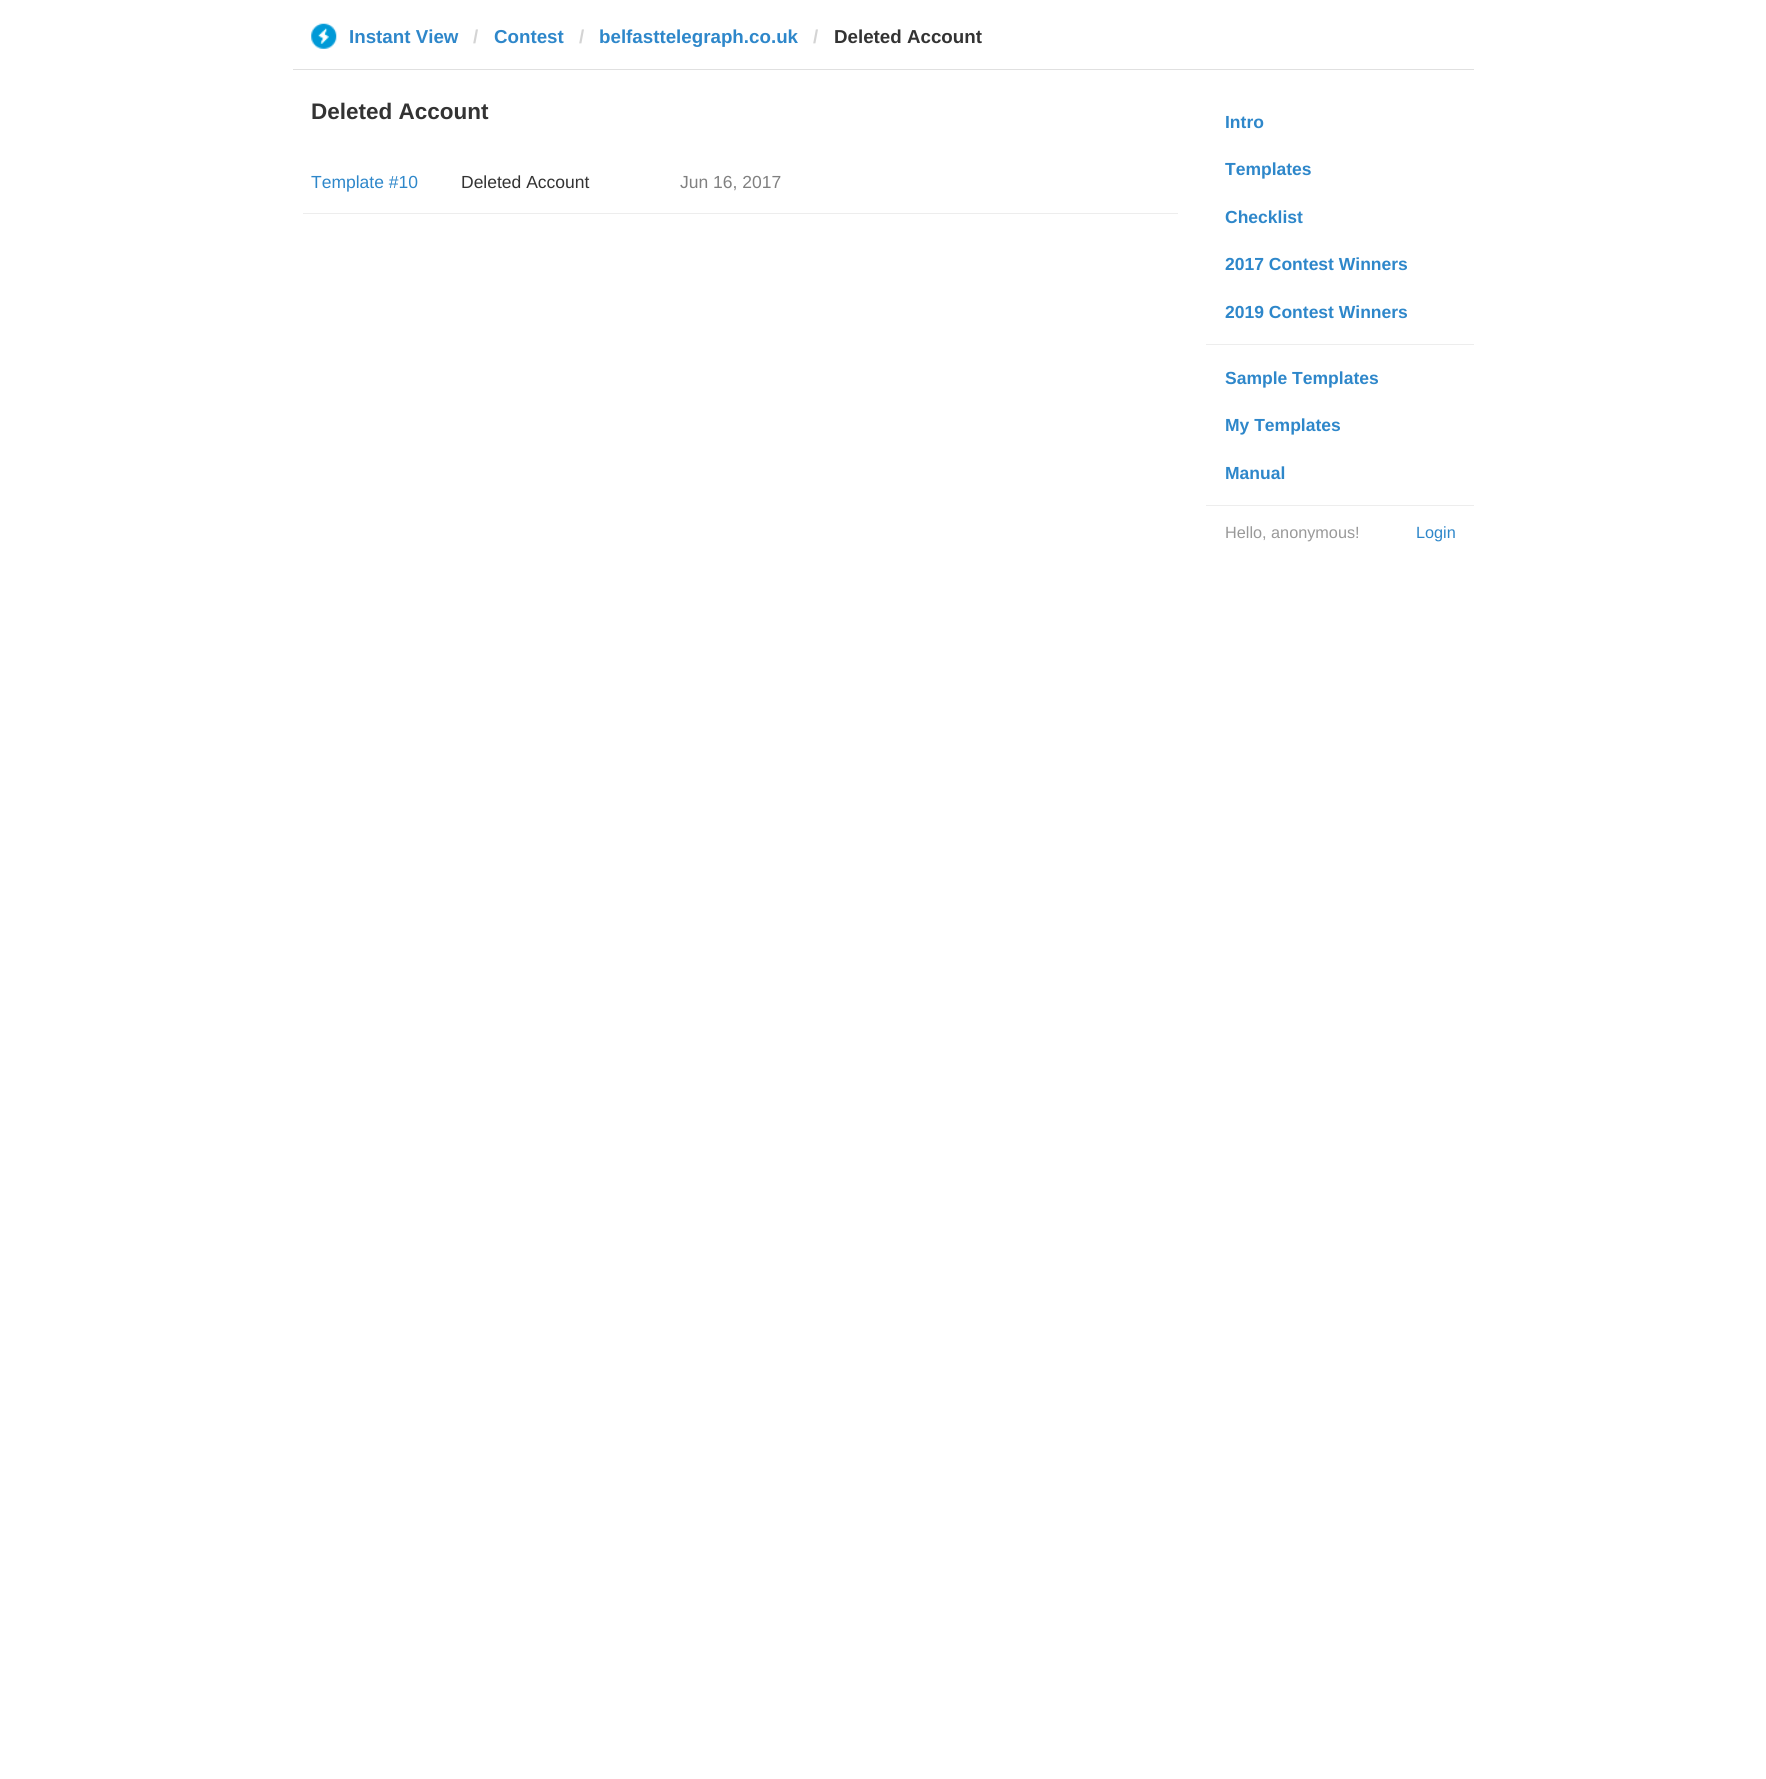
#include <cairo/cairo.h>
#include <math.h>
#include <stddef.h>

static cairo_t *cr;

static void use_color(int r, int g, int b) {
  cairo_set_source_rgb(cr, r / 255.0, g / 255.0, b / 255.0);
}

static void text(double x, double y, const char *s, const char *family, double size, int italic, int bold, int r, int g, int b) {
  cairo_select_font_face(cr, family, italic ? CAIRO_FONT_SLANT_ITALIC : CAIRO_FONT_SLANT_NORMAL,
    bold ? CAIRO_FONT_WEIGHT_BOLD : CAIRO_FONT_WEIGHT_NORMAL);
  cairo_set_font_size(cr, size);
  use_color(r, g, b);
  cairo_move_to(cr, x, y);
  cairo_show_text(cr, s);
}

static void box(double x, double y, double w, double h, int r, int g, int b) {
  use_color(r, g, b);
  cairo_rectangle(cr, x, y, w, h);
  cairo_fill(cr);
}

static void picture(const char *path, double x, double y, double w, double h) {
  cairo_surface_t *image = cairo_image_surface_create_from_png(path);
  cairo_save(cr);
  cairo_set_source_surface(cr, image, x, y);
  cairo_rectangle(cr, x, y, w, h);
  cairo_fill(cr);
  cairo_restore(cr);
  cairo_surface_destroy(image);
}

static void draw(void) {
  use_color(255, 255, 255);
  cairo_paint(cr);
  box(293, 69, 1181, 1, 224, 224, 224);
  picture("img_01.png", 311, 23, 26, 26);
  box(303, 213, 875, 1, 237, 237, 237);
  box(1206, 344, 268, 1, 237, 237, 237);
  box(1206, 505, 268, 1, 237, 237, 237);
  text(349, 43, "Instant View", "Liberation Sans", 18.75, 0, 1, 46, 135, 202);
  text(473, 43, "/", "Liberation Sans", 18.75, 0, 1, 212, 212, 212);
  text(494, 43, "Contest", "Liberation Sans", 18.75, 0, 1, 46, 135, 202);
  text(579, 43, "/", "Liberation Sans", 18.75, 0, 1, 212, 212, 212);
  text(599, 43, "belfasttelegraph.co.uk", "Liberation Sans", 18.75, 0, 1, 46, 135, 202);
  text(813, 43, "/", "Liberation Sans", 18.75, 0, 1, 212, 212, 212);
  text(834, 43, "Deleted Account", "Liberation Sans", 18.75, 0, 1, 51, 51, 51);
  text(311, 119, "Deleted Account", "Liberation Sans", 22.5, 0, 1, 51, 51, 51);
  text(311, 188, "Template #10", "Liberation Sans", 17.5, 0, 0, 46, 135, 202);
  text(461, 188, "Deleted Account", "Liberation Sans", 17.5, 0, 0, 51, 51, 51);
  text(680, 188, "Jun 16, 2017", "Liberation Sans", 17.5, 0, 0, 128, 128, 128);
  text(1225, 128, "Intro", "Liberation Sans", 17.5, 0, 1, 46, 135, 202);
  text(1225, 175, "Templates", "Liberation Sans", 17.5, 0, 1, 46, 135, 202);
  text(1225, 223, "Checklist", "Liberation Sans", 17.5, 0, 1, 46, 135, 202);
  text(1225, 270, "2017 Contest Winners", "Liberation Sans", 17.5, 0, 1, 46, 135, 202);
  text(1225, 318, "2019 Contest Winners", "Liberation Sans", 17.5, 0, 1, 46, 135, 202);
  text(1225, 384, "Sample Templates", "Liberation Sans", 17.5, 0, 1, 46, 135, 202);
  text(1225, 431, "My Templates", "Liberation Sans", 17.5, 0, 1, 46, 135, 202);
  text(1225, 479, "Manual", "Liberation Sans", 17.5, 0, 1, 46, 135, 202);
  text(1225, 538, "Hello, anonymous!", "Liberation Sans", 16.25, 0, 0, 153, 153, 153);
  text(1416, 538, "Login", "Liberation Sans", 16.25, 0, 0, 46, 135, 202);
}

int main(void) {
  cairo_surface_t *surface = cairo_image_surface_create(CAIRO_FORMAT_RGB24, 1766, 1779);
  cr = cairo_create(surface);
  cairo_font_options_t *options = cairo_font_options_create();
  cairo_font_options_set_hint_metrics(options, CAIRO_HINT_METRICS_OFF);
  cairo_font_options_set_hint_style(options, CAIRO_HINT_STYLE_NONE);
  cairo_set_font_options(cr, options);
  cairo_set_miter_limit(cr, 4);
  draw();
  cairo_surface_write_to_png(surface, "out.png");
  cairo_font_options_destroy(options);
  cairo_destroy(cr);
  cairo_surface_destroy(surface);
  return 0;
}
